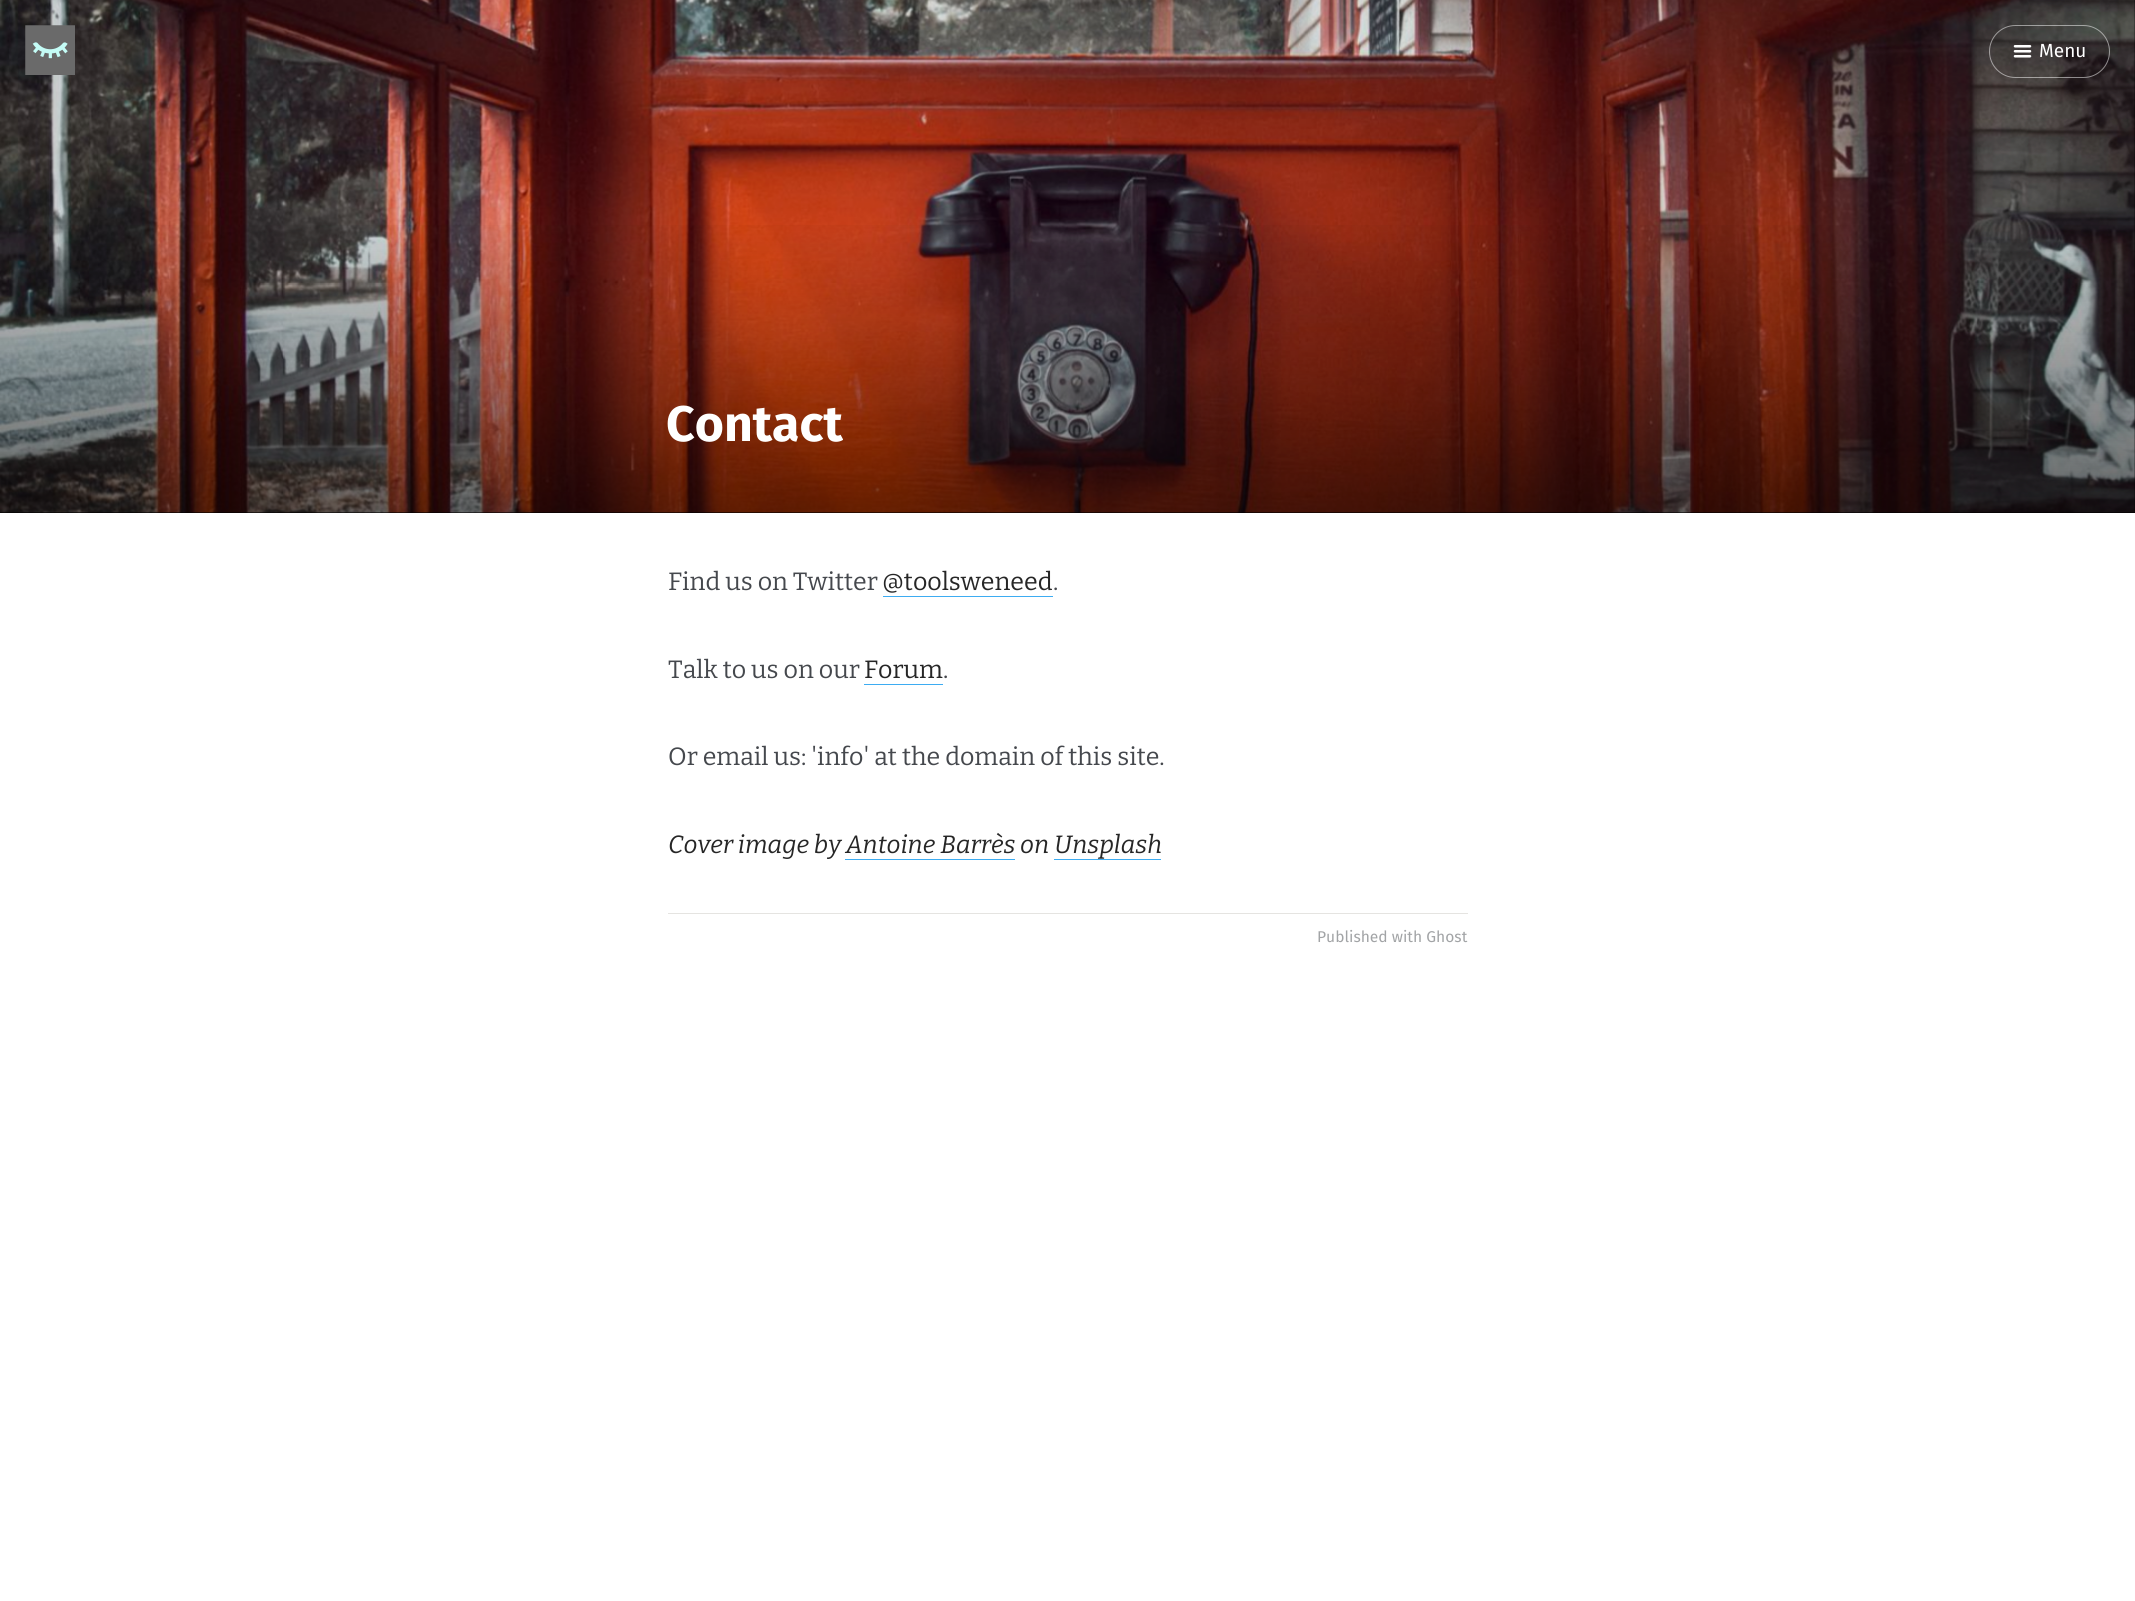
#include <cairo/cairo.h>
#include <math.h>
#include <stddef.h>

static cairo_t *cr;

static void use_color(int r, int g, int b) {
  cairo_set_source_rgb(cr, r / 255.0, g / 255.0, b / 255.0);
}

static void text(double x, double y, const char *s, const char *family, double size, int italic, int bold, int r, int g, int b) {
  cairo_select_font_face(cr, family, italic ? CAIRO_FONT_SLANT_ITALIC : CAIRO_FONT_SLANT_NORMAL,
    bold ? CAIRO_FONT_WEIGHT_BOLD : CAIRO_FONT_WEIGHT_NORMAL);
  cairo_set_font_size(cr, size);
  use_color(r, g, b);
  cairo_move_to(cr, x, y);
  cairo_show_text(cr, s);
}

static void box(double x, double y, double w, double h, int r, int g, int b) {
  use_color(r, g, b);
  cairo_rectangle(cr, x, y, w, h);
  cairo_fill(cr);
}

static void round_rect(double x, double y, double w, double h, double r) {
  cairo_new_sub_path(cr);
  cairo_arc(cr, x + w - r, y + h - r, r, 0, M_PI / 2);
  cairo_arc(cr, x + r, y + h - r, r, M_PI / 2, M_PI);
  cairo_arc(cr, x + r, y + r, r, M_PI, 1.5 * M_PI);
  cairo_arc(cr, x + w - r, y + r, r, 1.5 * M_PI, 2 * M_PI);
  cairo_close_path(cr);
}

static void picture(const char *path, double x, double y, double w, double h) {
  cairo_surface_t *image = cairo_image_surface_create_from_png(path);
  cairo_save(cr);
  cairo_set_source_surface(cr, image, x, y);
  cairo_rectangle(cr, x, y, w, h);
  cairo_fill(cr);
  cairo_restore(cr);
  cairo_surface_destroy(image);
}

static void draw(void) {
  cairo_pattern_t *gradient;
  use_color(255, 255, 255);
  cairo_paint(cr);
  box(0, 0, 2135, 513, 0, 0, 0);
  picture("img_01.png", 0, 0, 2135, 513);
  gradient = cairo_pattern_create_linear(1068, 212, 1068, 513);
  cairo_pattern_add_color_stop_rgba(gradient, 0, 0, 0, 0, 0);
  cairo_pattern_add_color_stop_rgba(gradient, 1, 0, 0, 0, 0.5);
  cairo_set_source(cr, gradient);
  cairo_pattern_destroy(gradient);
  cairo_rectangle(cr, 0, 225, 2135, 288);
  cairo_fill(cr);
  picture("img_02.png", 25, 25, 50, 50);
  round_rect(1989.5, 25.5, 120, 52, 26);
  cairo_set_source_rgba(cr, 1, 1, 1, 0.5);
  cairo_set_line_width(cr, 1);
  cairo_stroke(cr);
  picture("img_03.png", 2013, 45, 19, 13);
  box(883, 596, 170, 1, 61, 172, 242);
  box(864, 684, 79, 1, 61, 172, 242);
  box(845, 859, 170, 1, 61, 172, 242);
  box(1054, 859, 107, 1, 61, 172, 242);
  box(668, 913, 800, 1, 229, 228, 225);
  text(2039, 57, "Menu", "Fira Sans", 19, 0, 0, 255, 255, 255);
  text(666, 441, "Contact", "Fira Sans", 50, 0, 1, 255, 255, 255);
  text(668, 590, "Find us on Twitter", "Bitter", 25, 0, 0, 69, 72, 77);
  text(882, 590, "@toolsweneed", "Bitter", 25, 0, 0, 38, 38, 38);
  text(1053, 590, ".", "Bitter", 25, 0, 0, 69, 72, 77);
  text(668, 678, "Talk to us on our", "Bitter", 25, 0, 0, 69, 72, 77);
  text(864, 678, "Forum", "Bitter", 25, 0, 0, 38, 38, 38);
  text(943, 678, ".", "Bitter", 25, 0, 0, 69, 72, 77);
  text(668, 765, "Or email us: 'info' at the domain of this site.", "Bitter", 25, 0, 0, 69, 72, 77);
  text(668, 853, "Cover image by Antoine Barrès on Unsplash", "Bitter", 25, 1, 0, 38, 38, 38);
  text(1317, 942, "Published with Ghost", "Fira Sans", 15.6, 0, 0, 162, 164, 166);
}

int main(void) {
  cairo_surface_t *surface = cairo_image_surface_create(CAIRO_FORMAT_RGB24, 2135, 1601);
  cr = cairo_create(surface);
  cairo_font_options_t *options = cairo_font_options_create();
  cairo_font_options_set_hint_metrics(options, CAIRO_HINT_METRICS_OFF);
  cairo_font_options_set_hint_style(options, CAIRO_HINT_STYLE_NONE);
  cairo_set_font_options(cr, options);
  cairo_set_miter_limit(cr, 4);
  draw();
  cairo_surface_write_to_png(surface, "out.png");
  cairo_font_options_destroy(options);
  cairo_destroy(cr);
  cairo_surface_destroy(surface);
  return 0;
}
